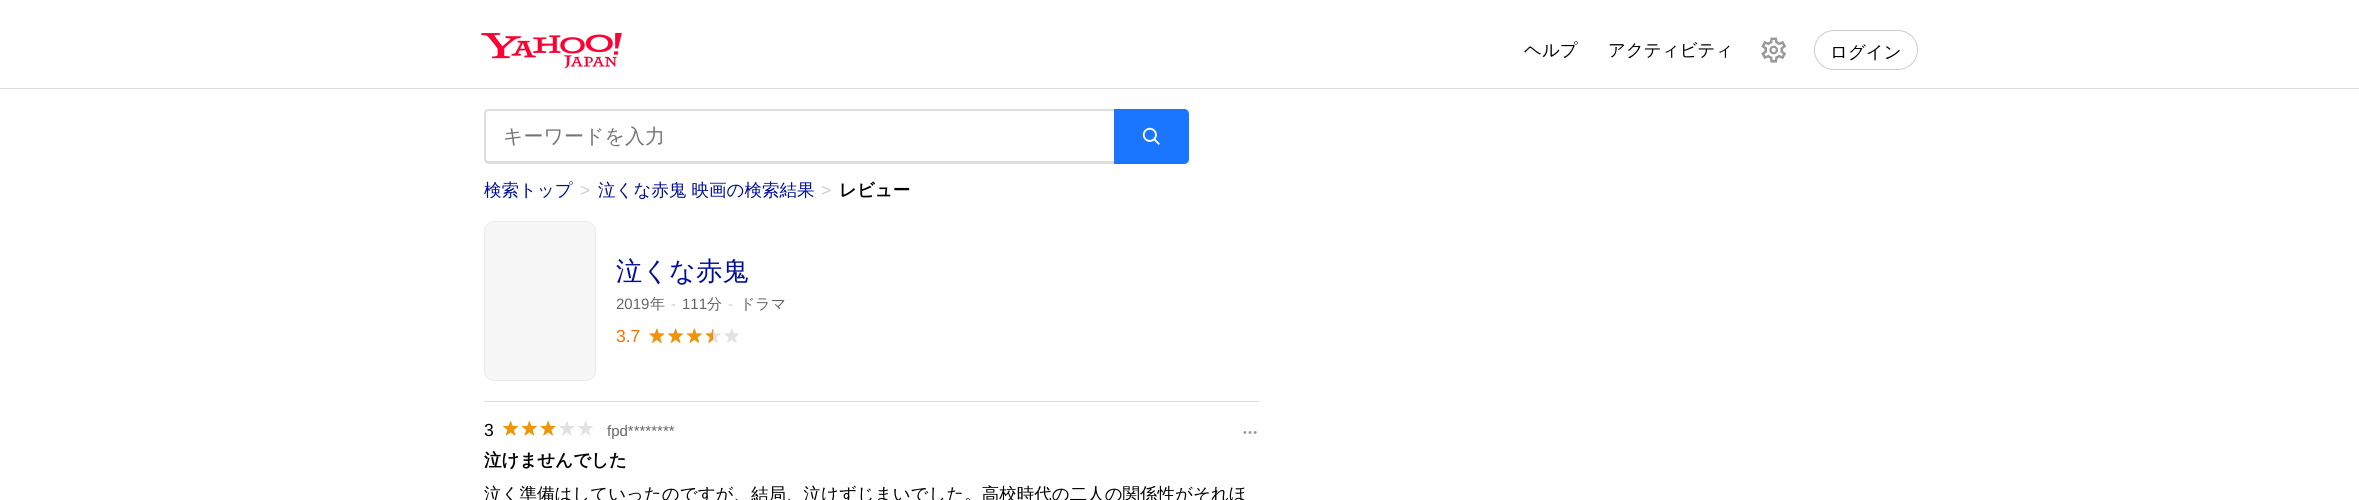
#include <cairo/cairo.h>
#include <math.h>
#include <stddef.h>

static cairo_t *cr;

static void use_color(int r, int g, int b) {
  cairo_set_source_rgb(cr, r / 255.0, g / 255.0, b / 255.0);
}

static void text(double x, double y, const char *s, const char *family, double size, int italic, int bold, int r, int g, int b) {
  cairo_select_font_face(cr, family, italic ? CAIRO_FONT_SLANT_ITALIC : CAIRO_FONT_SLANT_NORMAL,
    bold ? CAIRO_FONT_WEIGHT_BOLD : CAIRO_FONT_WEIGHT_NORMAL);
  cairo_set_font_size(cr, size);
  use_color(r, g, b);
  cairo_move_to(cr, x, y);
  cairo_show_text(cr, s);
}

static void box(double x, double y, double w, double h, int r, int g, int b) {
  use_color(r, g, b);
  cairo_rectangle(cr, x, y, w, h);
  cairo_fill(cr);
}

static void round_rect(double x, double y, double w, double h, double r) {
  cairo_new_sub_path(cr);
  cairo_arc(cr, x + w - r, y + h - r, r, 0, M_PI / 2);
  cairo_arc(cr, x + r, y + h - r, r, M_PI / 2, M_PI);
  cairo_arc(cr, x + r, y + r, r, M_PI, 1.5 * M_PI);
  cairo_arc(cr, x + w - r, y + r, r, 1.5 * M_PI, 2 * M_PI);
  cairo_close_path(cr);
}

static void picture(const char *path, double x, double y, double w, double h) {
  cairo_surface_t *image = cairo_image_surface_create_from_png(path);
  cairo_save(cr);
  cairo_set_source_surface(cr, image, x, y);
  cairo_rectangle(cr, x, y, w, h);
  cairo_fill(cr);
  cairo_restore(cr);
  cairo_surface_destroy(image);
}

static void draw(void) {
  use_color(255, 255, 255);
  cairo_paint(cr);
  box(0, 88, 2359, 1, 221, 221, 221);
  picture("img_01.png", 481, 32, 141, 37);
  picture("img_02.png", 1761, 37, 26, 26);
  round_rect(1814.5, 30.5, 103, 39, 19.5);
  use_color(204, 204, 204);
  cairo_set_line_width(cr, 1);
  cairo_stroke(cr);
  use_color(221, 221, 221);
  cairo_set_fill_rule(cr, CAIRO_FILL_RULE_EVEN_ODD);
  cairo_new_path(cr);
  cairo_move_to(cr, 489, 109);
  cairo_line_to(cr, 1114, 109);
  cairo_line_to(cr, 1114, 164);
  cairo_line_to(cr, 489, 164);
  cairo_curve_to(cr, 486, 164, 484, 162, 484, 159);
  cairo_line_to(cr, 484, 114);
  cairo_curve_to(cr, 484, 111, 486, 109, 489, 109);
  cairo_close_path(cr);
  cairo_move_to(cr, 489, 111);
  cairo_line_to(cr, 1114, 111);
  cairo_line_to(cr, 1114, 161);
  cairo_line_to(cr, 489, 161);
  cairo_curve_to(cr, 487, 161, 486, 160, 486, 159);
  cairo_line_to(cr, 486, 114);
  cairo_curve_to(cr, 486, 112, 487, 111, 489, 111);
  cairo_close_path(cr);
  cairo_fill(cr);
  use_color(26, 117, 255);
  cairo_new_path(cr);
  cairo_move_to(cr, 1114, 109);
  cairo_line_to(cr, 1184, 109);
  cairo_curve_to(cr, 1187, 109, 1189, 111, 1189, 114);
  cairo_line_to(cr, 1189, 159);
  cairo_curve_to(cr, 1189, 162, 1187, 164, 1184, 164);
  cairo_line_to(cr, 1114, 164);
  cairo_close_path(cr);
  cairo_fill(cr);
  picture("img_03.png", 1142, 127, 18, 18);
  use_color(247, 247, 247);
  round_rect(484.5, 221.5, 111, 159, 9.5);
  cairo_fill_preserve(cr);
  use_color(235, 235, 235);
  cairo_stroke(cr);
  picture("img_04.png", 649, 328, 15, 15);
  picture("img_05.png", 668, 328, 15, 15);
  picture("img_06.png", 687, 328, 15, 15);
  picture("img_07.png", 706, 328, 15, 15);
  picture("img_04.png", 724, 328, 15, 15);
  picture("img_08.png", 649, 328, 16, 15);
  picture("img_09.png", 668, 328, 15, 15);
  picture("img_10.png", 687, 328, 15, 15);
  picture("img_11.png", 705, 328, 9, 15);
  box(484, 401, 775, 1, 221, 221, 221);
  picture("img_12.png", 503, 421, 15, 15);
  picture("img_13.png", 522, 421, 15, 15);
  picture("img_14.png", 540, 421, 16, 15);
  picture("img_15.png", 559, 421, 16, 15);
  picture("img_12.png", 578, 421, 15, 15);
  picture("img_16.png", 503, 421, 15, 15);
  picture("img_17.png", 522, 421, 15, 15);
  picture("img_18.png", 540, 421, 16, 15);
  picture("img_19.png", 1243, 431, 14, 3);
  text(1524, 56, "ヘルプ", "WenQuanYi Zen Hei Medium", 17.5, 0, 0, 0, 0, 0);
  text(1608, 56, "アクティビティ", "WenQuanYi Zen Hei Medium", 17.5, 0, 0, 0, 0, 0);
  text(1830, 58, "ログイン", "WenQuanYi Zen Hei Medium", 17.5, 0, 0, 0, 0, 0);
  text(503, 143, "キーワードを入力", "WenQuanYi Zen Hei Medium", 20, 0, 0, 117, 117, 117);
  text(484, 196, "検索トップ", "WenQuanYi Zen Hei Medium", 17.5, 0, 0, 0, 13, 153);
  text(580, 196, ">", "Liberation Sans", 17.5, 0, 0, 204, 204, 204);
  text(598, 196, "泣くな赤鬼 映画の検索結果", "WenQuanYi Zen Hei Medium", 17.5, 0, 0, 0, 13, 153);
  text(821, 196, ">", "Liberation Sans", 17.5, 0, 0, 204, 204, 204);
  text(839, 196, "レビュー", "WenQuanYi Zen Hei", 17.5, 0, 1, 0, 0, 0);
  text(616, 280, "泣くな赤鬼", "WenQuanYi Zen Hei Medium", 26.25, 0, 0, 0, 13, 153);
  text(616, 309, "2019", "Liberation Sans", 15, 0, 0, 102, 102, 102);
  text(650, 309, "年", "WenQuanYi Zen Hei Medium", 15, 0, 0, 102, 102, 102);
  text(671, 309, "-", "Liberation Sans", 15, 0, 0, 204, 204, 204);
  text(682, 309, "111", "Liberation Sans", 15, 0, 0, 102, 102, 102);
  text(707, 309, "分", "WenQuanYi Zen Hei Medium", 15, 0, 0, 102, 102, 102);
  text(728, 309, "-", "Liberation Sans", 15, 0, 0, 204, 204, 204);
  text(740, 309, "ドラマ", "WenQuanYi Zen Hei Medium", 15, 0, 0, 102, 102, 102);
  text(616, 342, "3.7", "Liberation Sans", 17.5, 0, 0, 237, 117, 0);
  text(484, 436, "3", "Liberation Sans", 17.5, 0, 0, 0, 0, 0);
  text(607, 436, "fpd********", "Liberation Sans", 15, 0, 0, 102, 102, 102);
  text(484, 466, "泣けませんでした", "WenQuanYi Zen Hei", 17.5, 0, 1, 0, 0, 0);
  text(484, 500, "泣く準備はしていったのですが、結局、泣けずじまいでした。高校時代の二人の関係性がそれほ", "WenQuanYi Zen Hei Medium", 17.5, 0, 0, 0, 0, 0);
}

int main(void) {
  cairo_surface_t *surface = cairo_image_surface_create(CAIRO_FORMAT_RGB24, 2359, 500);
  cr = cairo_create(surface);
  cairo_font_options_t *options = cairo_font_options_create();
  cairo_font_options_set_hint_metrics(options, CAIRO_HINT_METRICS_OFF);
  cairo_font_options_set_hint_style(options, CAIRO_HINT_STYLE_NONE);
  cairo_set_font_options(cr, options);
  cairo_set_miter_limit(cr, 4);
  draw();
  cairo_surface_write_to_png(surface, "out.png");
  cairo_font_options_destroy(options);
  cairo_destroy(cr);
  cairo_surface_destroy(surface);
  return 0;
}
